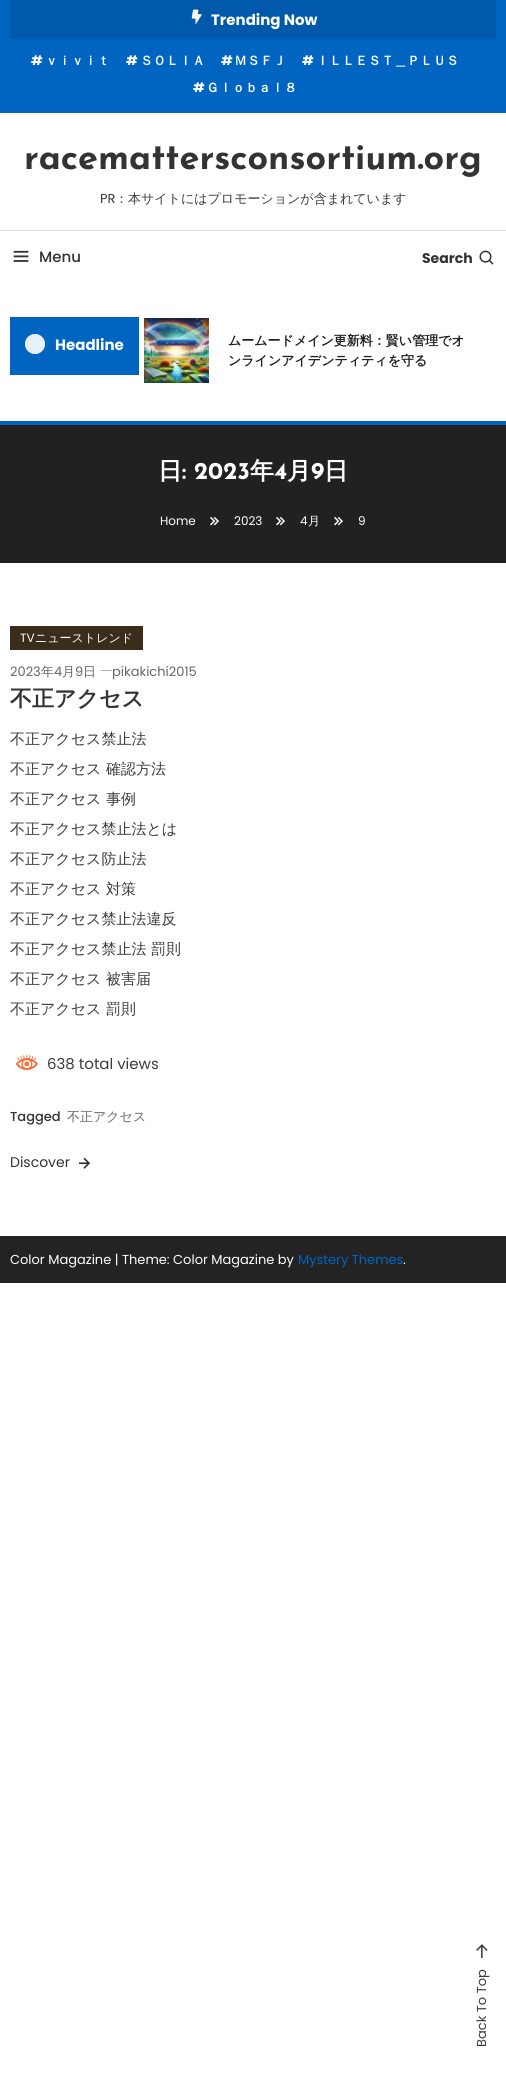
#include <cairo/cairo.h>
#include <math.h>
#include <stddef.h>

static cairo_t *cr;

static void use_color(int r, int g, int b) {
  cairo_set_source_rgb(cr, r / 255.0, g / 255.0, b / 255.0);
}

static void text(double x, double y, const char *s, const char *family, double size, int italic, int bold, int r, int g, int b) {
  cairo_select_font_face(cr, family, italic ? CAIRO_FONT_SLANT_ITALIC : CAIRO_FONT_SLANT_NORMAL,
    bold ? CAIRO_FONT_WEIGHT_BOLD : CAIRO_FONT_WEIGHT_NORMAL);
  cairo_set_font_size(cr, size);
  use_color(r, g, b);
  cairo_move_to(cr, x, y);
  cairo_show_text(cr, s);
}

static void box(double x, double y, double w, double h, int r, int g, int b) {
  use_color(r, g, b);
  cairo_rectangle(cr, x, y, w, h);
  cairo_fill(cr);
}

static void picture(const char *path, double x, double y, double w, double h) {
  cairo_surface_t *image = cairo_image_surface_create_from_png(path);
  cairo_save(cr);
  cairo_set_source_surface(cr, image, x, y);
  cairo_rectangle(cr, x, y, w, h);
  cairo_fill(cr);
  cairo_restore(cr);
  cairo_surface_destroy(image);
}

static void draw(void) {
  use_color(255, 255, 255);
  cairo_paint(cr);
  box(0, 0, 506, 113, 0, 101, 193);
  box(10, 0, 486, 39, 0, 89, 170);
  picture("img_01.png", 191, 9, 11, 16);
  box(0, 230, 506, 1, 225, 225, 225);
  picture("img_02.png", 13, 250, 16, 12);
  picture("img_03.png", 479, 250, 15, 15);
  box(10, 317, 129, 58, 0, 101, 193);
  use_color(179, 209, 236);
  cairo_arc(cr, 35, 344, 10, 0, 2 * M_PI);
  cairo_fill(cr);
  cairo_set_source_rgba(cr, 1, 1, 1, 0.7);
  cairo_arc(cr, 35, 344, 10, 0, 2 * M_PI);
  cairo_fill(cr);
  picture("img_04.png", 144, 318, 65, 65);
  box(0, 425, 506, 138, 33, 33, 33);
  box(0, 421, 506, 4, 0, 101, 193);
  picture("img_05.png", 210, 516, 9, 10);
  picture("img_05.png", 276, 516, 9, 10);
  picture("img_05.png", 334, 516, 9, 10);
  box(10, 626, 133, 24, 59, 45, 27);
  box(101, 670, 11, 1, 176, 176, 176);
  picture("img_06.png", 15, 1055, 23, 15);
  picture("img_07.png", 79, 1157, 12, 12);
  box(0, 1236, 506, 47, 35, 35, 35);
  picture("img_08.png", 476, 1944, 12, 14);
  text(211, 25, "Trending Now", "Poppins", 15, 0, 1, 255, 255, 255);
  text(31, 65, "#", "Poppins", 13, 0, 1, 255, 255, 255);
  text(45, 65, "ｖｉｖｉｔ", "WenQuanYi Zen Hei", 13, 0, 1, 255, 255, 255);
  text(126, 65, "#", "Poppins", 13, 0, 1, 255, 255, 255);
  text(140, 65, "ＳＯＬＩＡ", "WenQuanYi Zen Hei", 13, 0, 1, 255, 255, 255);
  text(221, 65, "#", "Poppins", 13, 0, 1, 255, 255, 255);
  text(234, 65, "ＭＳＦＪ", "WenQuanYi Zen Hei", 13, 0, 1, 255, 255, 255);
  text(302, 65, "#", "Poppins", 13, 0, 1, 255, 255, 255);
  text(316, 65, "ＩＬＬＥＳＴ＿ＰＬＵＳ", "WenQuanYi Zen Hei", 13, 0, 1, 255, 255, 255);
  text(193, 92, "#", "Poppins", 13, 0, 1, 255, 255, 255);
  text(206, 92, "Ｇｌｏｂａｌ８", "WenQuanYi Zen Hei", 13, 0, 1, 255, 255, 255);
  text(24, 169, "racemattersconsortium.org", "Josefin Sans", 36, 0, 1, 51, 51, 51);
  text(100, 203, "PR", "Poppins", 13, 0, 0, 59, 59, 59);
  text(115, 203, "：本サイトにはプロモーションが含まれています", "WenQuanYi Zen Hei Medium", 13, 0, 0, 59, 59, 59);
  text(39, 262, "Menu", "Poppins Medium", 15, 0, 0, 51, 51, 51);
  text(422, 263, "Search", "Poppins", 14, 0, 1, 51, 51, 51);
  text(55, 350, "Headline", "Poppins", 15, 0, 1, 255, 255, 255);
  text(228, 345, "ムームードメイン更新料：賢い管理でオ", "WenQuanYi Zen Hei", 13, 0, 1, 33, 33, 33);
  text(228, 365, "ンラインアイデンティティを守る", "WenQuanYi Zen Hei", 13, 0, 1, 33, 33, 33);
  text(158, 479, "日", "WenQuanYi Zen Hei", 24, 0, 1, 255, 255, 255);
  text(182, 479, ": 2023", "Josefin Sans", 24, 0, 1, 255, 255, 255);
  text(250, 479, "年", "WenQuanYi Zen Hei", 24, 0, 1, 255, 255, 255);
  text(274, 479, "4", "Josefin Sans", 24, 0, 1, 255, 255, 255);
  text(287, 479, "月", "WenQuanYi Zen Hei", 24, 0, 1, 255, 255, 255);
  text(311, 479, "9", "Josefin Sans", 24, 0, 1, 255, 255, 255);
  text(324, 479, "日", "WenQuanYi Zen Hei", 24, 0, 1, 255, 255, 255);
  text(160, 525, "Home", "Poppins", 12, 0, 0, 255, 255, 255);
  text(234, 525, "2023", "Poppins", 12, 0, 0, 255, 255, 255);
  text(300, 525, "4", "Poppins", 12, 0, 0, 255, 255, 255);
  text(308, 525, "月", "WenQuanYi Zen Hei Medium", 12, 0, 0, 255, 255, 255);
  text(358, 525, "9", "Poppins", 12, 0, 0, 255, 255, 255);
  text(20, 642, "TV", "Poppins", 12, 0, 0, 255, 255, 255);
  text(35, 642, "ニューストレンド", "WenQuanYi Zen Hei Medium", 12, 0, 0, 255, 255, 255);
  text(10, 676, "2023", "Poppins", 13, 0, 0, 102, 102, 102);
  text(41, 676, "年", "WenQuanYi Zen Hei Medium", 13, 0, 0, 102, 102, 102);
  text(54, 676, "4", "Poppins", 13, 0, 0, 102, 102, 102);
  text(62, 676, "月", "WenQuanYi Zen Hei Medium", 13, 0, 0, 102, 102, 102);
  text(75, 676, "9", "Poppins", 13, 0, 0, 102, 102, 102);
  text(83, 676, "日", "WenQuanYi Zen Hei Medium", 13, 0, 0, 102, 102, 102);
  text(112, 676, "pikakichi2015", "Poppins", 13, 0, 0, 102, 102, 102);
  text(10, 706, "不正アクセス", "WenQuanYi Zen Hei", 22, 0, 1, 51, 51, 51);
  text(10, 744, "不正アクセス禁止法", "WenQuanYi Zen Hei Medium", 15, 0, 0, 59, 59, 59);
  text(10, 774, "不正アクセス 確認方法", "WenQuanYi Zen Hei Medium", 15, 0, 0, 59, 59, 59);
  text(10, 804, "不正アクセス 事例", "WenQuanYi Zen Hei Medium", 15, 0, 0, 59, 59, 59);
  text(10, 834, "不正アクセス禁止法とは", "WenQuanYi Zen Hei Medium", 15, 0, 0, 59, 59, 59);
  text(10, 864, "不正アクセス防止法", "WenQuanYi Zen Hei Medium", 15, 0, 0, 59, 59, 59);
  text(10, 894, "不正アクセス 対策", "WenQuanYi Zen Hei Medium", 15, 0, 0, 59, 59, 59);
  text(10, 924, "不正アクセス禁止法違反", "WenQuanYi Zen Hei Medium", 15, 0, 0, 59, 59, 59);
  text(10, 954, "不正アクセス禁止法 罰則", "WenQuanYi Zen Hei Medium", 15, 0, 0, 59, 59, 59);
  text(10, 984, "不正アクセス 被害届", "WenQuanYi Zen Hei Medium", 15, 0, 0, 59, 59, 59);
  text(10, 1014, "不正アクセス 罰則", "WenQuanYi Zen Hei Medium", 15, 0, 0, 59, 59, 59);
  text(47, 1069, "638 total views", "Poppins", 15, 0, 0, 59, 59, 59);
  text(10, 1121, "Tagged", "Poppins Medium", 13, 0, 0, 51, 51, 51);
  text(67, 1121, "不正アクセス", "WenQuanYi Zen Hei Medium", 13, 0, 0, 102, 102, 102);
  text(10, 1167, "Discover", "Poppins", 14, 0, 0, 51, 51, 51);
  text(10, 1264, "Color Magazine | Theme: Color Magazine by", "Poppins", 13, 0, 0, 255, 255, 255);
  text(298, 1264, "Mystery Themes", "Poppins", 13, 0, 0, 0, 101, 193);
  text(403, 1264, ".", "Poppins", 13, 0, 0, 255, 255, 255);
  cairo_save(cr);
  cairo_translate(cr, 486, 2047);
  cairo_rotate(cr, -90 * M_PI / 180);
  text(0, 0, "Back To Top", "Poppins", 13, 0, 0, 59, 59, 59);
  cairo_restore(cr);
}

int main(void) {
  cairo_surface_t *surface = cairo_image_surface_create(CAIRO_FORMAT_RGB24, 506, 2075);
  cr = cairo_create(surface);
  cairo_font_options_t *options = cairo_font_options_create();
  cairo_font_options_set_hint_metrics(options, CAIRO_HINT_METRICS_OFF);
  cairo_font_options_set_hint_style(options, CAIRO_HINT_STYLE_NONE);
  cairo_set_font_options(cr, options);
  cairo_set_miter_limit(cr, 4);
  draw();
  cairo_surface_write_to_png(surface, "out.png");
  cairo_font_options_destroy(options);
  cairo_destroy(cr);
  cairo_surface_destroy(surface);
  return 0;
}
